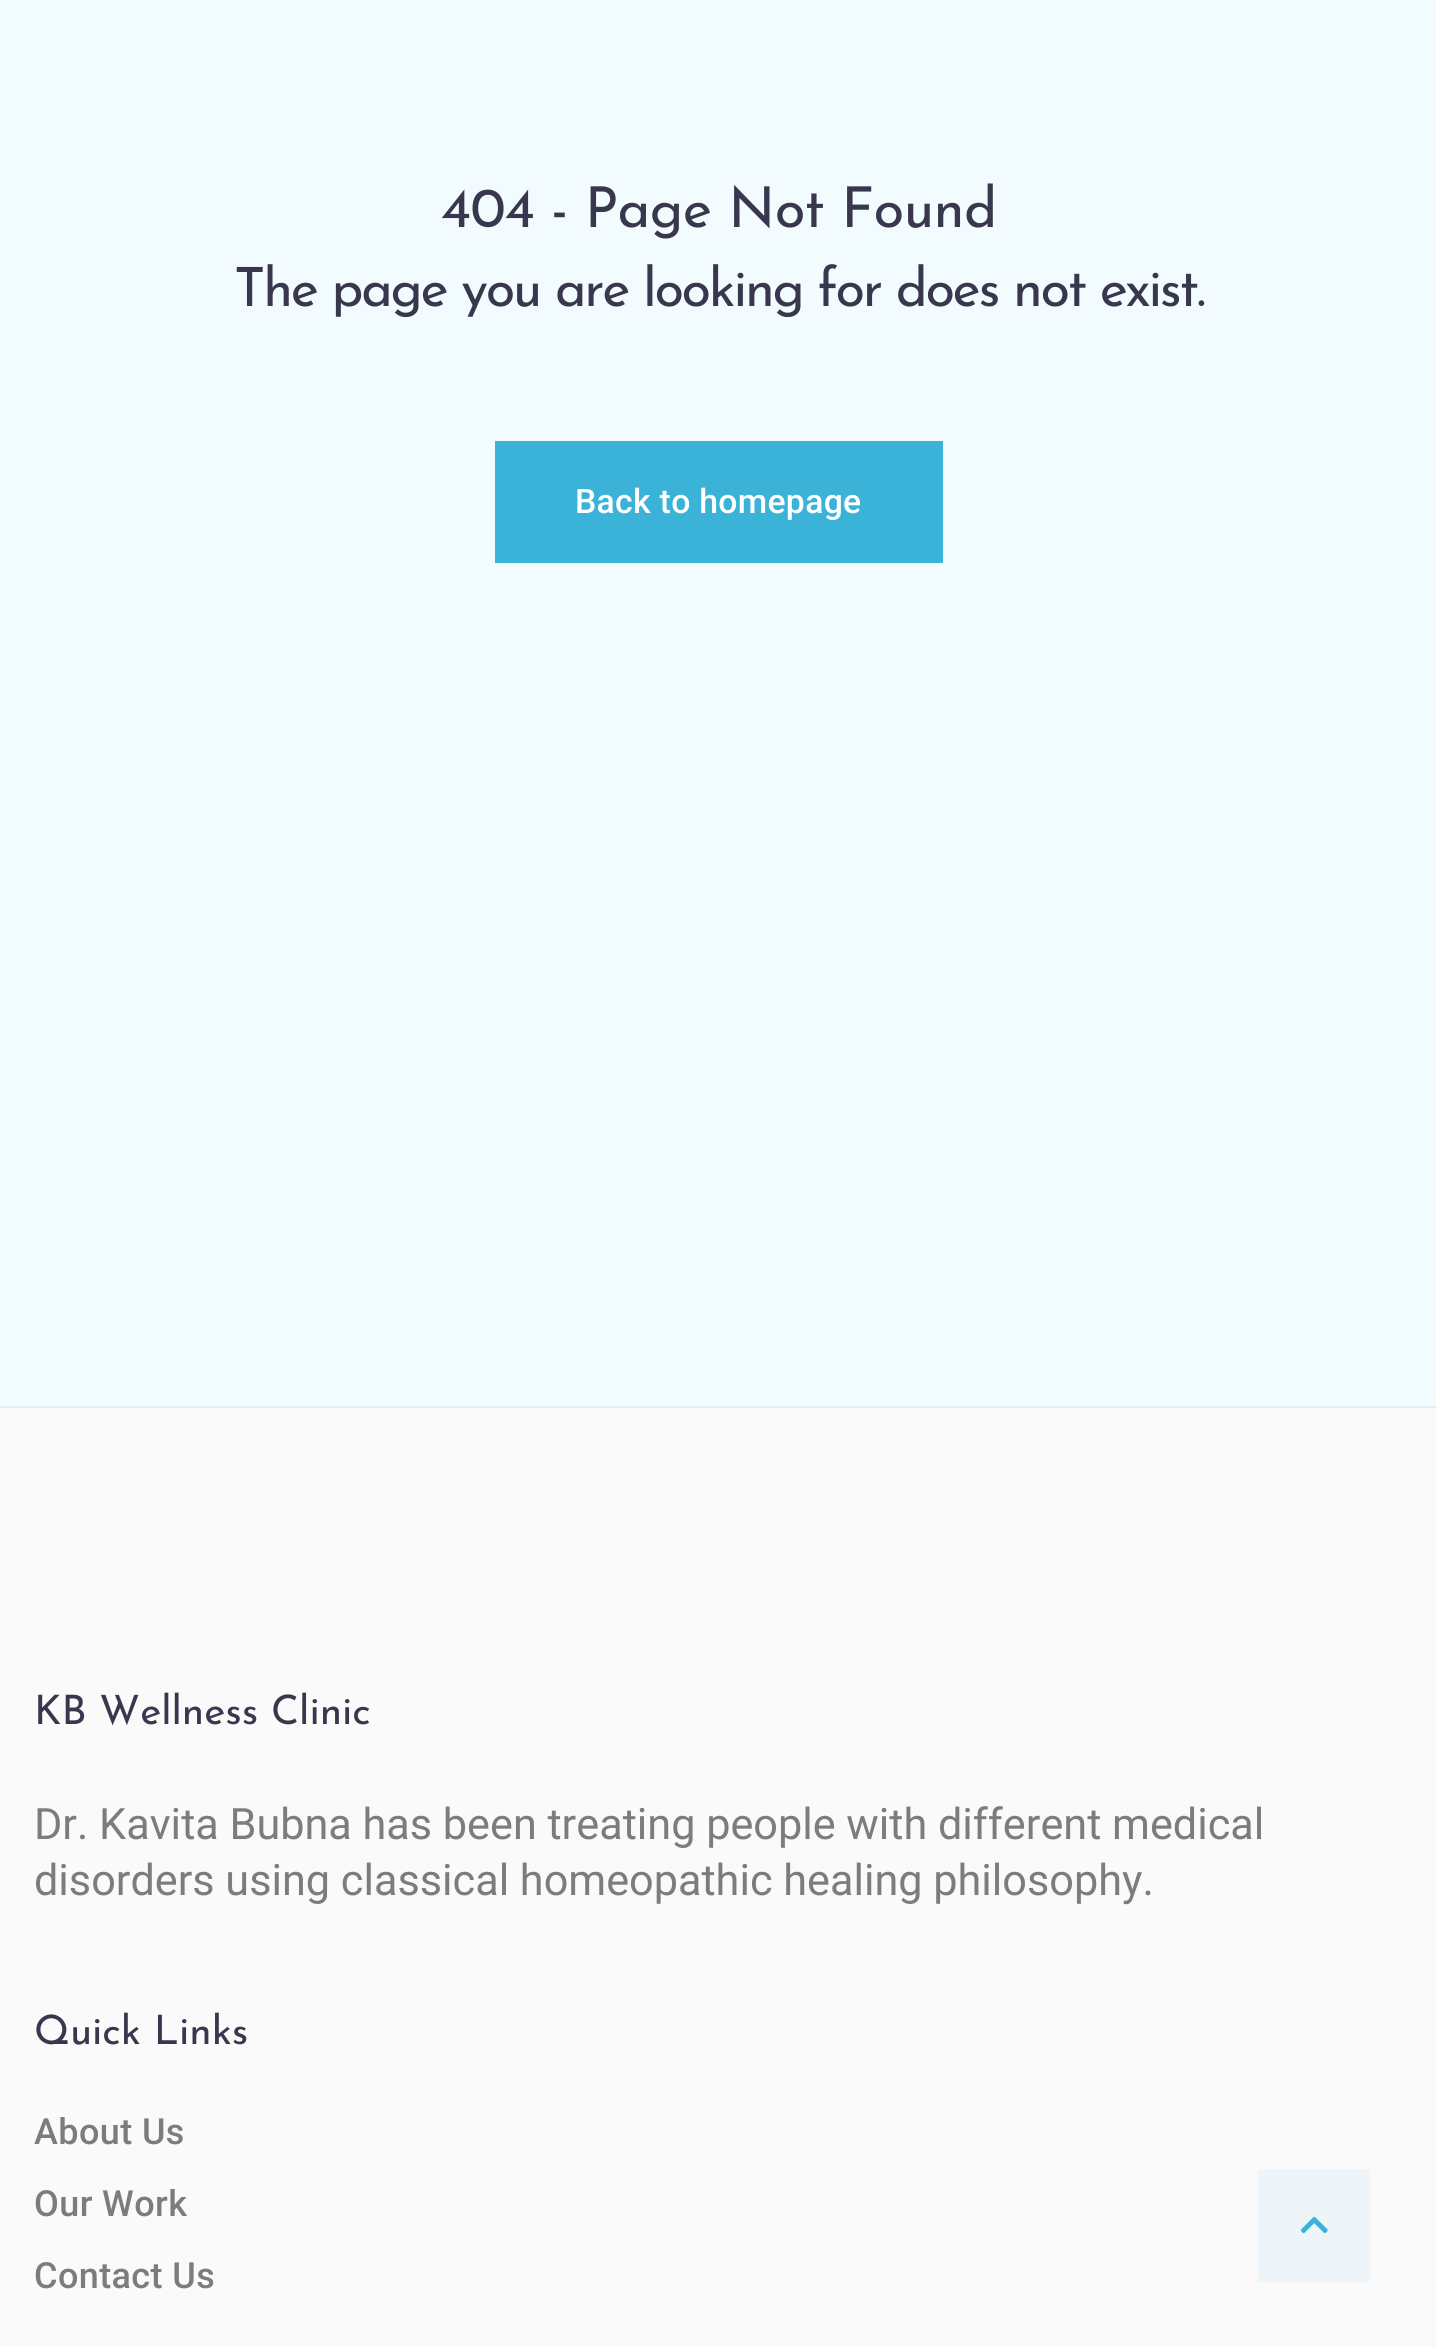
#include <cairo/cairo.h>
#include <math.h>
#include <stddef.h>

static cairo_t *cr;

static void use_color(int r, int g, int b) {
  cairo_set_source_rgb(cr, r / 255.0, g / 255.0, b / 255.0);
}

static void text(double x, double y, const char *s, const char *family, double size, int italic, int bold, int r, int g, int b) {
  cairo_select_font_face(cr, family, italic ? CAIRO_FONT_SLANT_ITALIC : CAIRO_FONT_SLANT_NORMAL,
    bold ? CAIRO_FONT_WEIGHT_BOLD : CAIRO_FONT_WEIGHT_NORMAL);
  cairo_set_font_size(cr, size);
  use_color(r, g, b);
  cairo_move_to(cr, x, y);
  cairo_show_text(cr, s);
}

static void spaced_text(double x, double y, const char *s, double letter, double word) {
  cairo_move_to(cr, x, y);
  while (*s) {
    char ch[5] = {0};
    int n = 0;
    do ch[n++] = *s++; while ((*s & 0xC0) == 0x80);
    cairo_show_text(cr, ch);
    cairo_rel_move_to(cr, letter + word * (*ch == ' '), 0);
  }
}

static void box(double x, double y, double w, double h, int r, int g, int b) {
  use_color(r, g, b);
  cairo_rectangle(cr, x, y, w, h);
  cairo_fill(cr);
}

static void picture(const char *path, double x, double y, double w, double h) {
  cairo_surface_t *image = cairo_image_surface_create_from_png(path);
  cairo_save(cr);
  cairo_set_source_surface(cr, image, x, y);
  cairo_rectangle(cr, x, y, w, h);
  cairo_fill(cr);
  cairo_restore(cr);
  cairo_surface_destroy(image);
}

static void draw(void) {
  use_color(250, 250, 250);
  cairo_paint(cr);
  box(0, 0, 1436, 1406, 242, 251, 253);
  box(495, 441, 448, 122, 59, 179, 216);
  box(0, 1406, 1436, 2, 221, 239, 245);
  box(1258, 2169, 112, 113, 237, 245, 248);
  picture("img_01.png", 1300, 2216, 28, 18);
  cairo_select_font_face(cr, "Josefin Sans Thin", CAIRO_FONT_SLANT_NORMAL, CAIRO_FONT_WEIGHT_NORMAL);
  cairo_set_font_size(cr, 56.25);
  use_color(57, 55, 77);
  spaced_text(441, 227, "404 - Page Not Found", -0.7, 0);
  cairo_set_font_size(cr, 54);
  spaced_text(234, 306, "The page you are looking for does not exist.", -2.25, 0);
  cairo_select_font_face(cr, "Roboto Medium", CAIRO_FONT_SLANT_NORMAL, CAIRO_FONT_WEIGHT_NORMAL);
  cairo_set_font_size(cr, 33.75);
  use_color(255, 255, 255);
  spaced_text(575, 513, "Back to homepage", 0.3, 0);
  text(34, 1724, "KB Wellness Clinic", "Josefin Sans Thin", 40.5, 0, 0, 57, 55, 77);
  text(34, 1839, "Dr. Kavita Bubna has been treating people with different medical", "Roboto", 43.2, 0, 0, 124, 124, 124);
  text(34, 1895, "disorders using classical homeopathic healing philosophy.", "Roboto", 43.2, 0, 0, 124, 124, 124);
  text(34, 2044, "Quick Links", "Josefin Sans Thin", 40.5, 0, 0, 57, 55, 77);
  cairo_select_font_face(cr, "Roboto Medium", CAIRO_FONT_SLANT_NORMAL, CAIRO_FONT_WEIGHT_NORMAL);
  cairo_set_font_size(cr, 36);
  use_color(124, 124, 124);
  spaced_text(34, 2144, "About Us", 0.4, 0);
  spaced_text(34, 2216, "Our Work", 0.4, 0);
  spaced_text(34, 2288, "Contact Us", 0.4, 0);
}

int main(void) {
  cairo_surface_t *surface = cairo_image_surface_create(CAIRO_FORMAT_RGB24, 1436, 2347);
  cr = cairo_create(surface);
  cairo_font_options_t *options = cairo_font_options_create();
  cairo_font_options_set_hint_metrics(options, CAIRO_HINT_METRICS_OFF);
  cairo_font_options_set_hint_style(options, CAIRO_HINT_STYLE_NONE);
  cairo_set_font_options(cr, options);
  cairo_set_miter_limit(cr, 4);
  draw();
  cairo_surface_write_to_png(surface, "out.png");
  cairo_font_options_destroy(options);
  cairo_destroy(cr);
  cairo_surface_destroy(surface);
  return 0;
}
